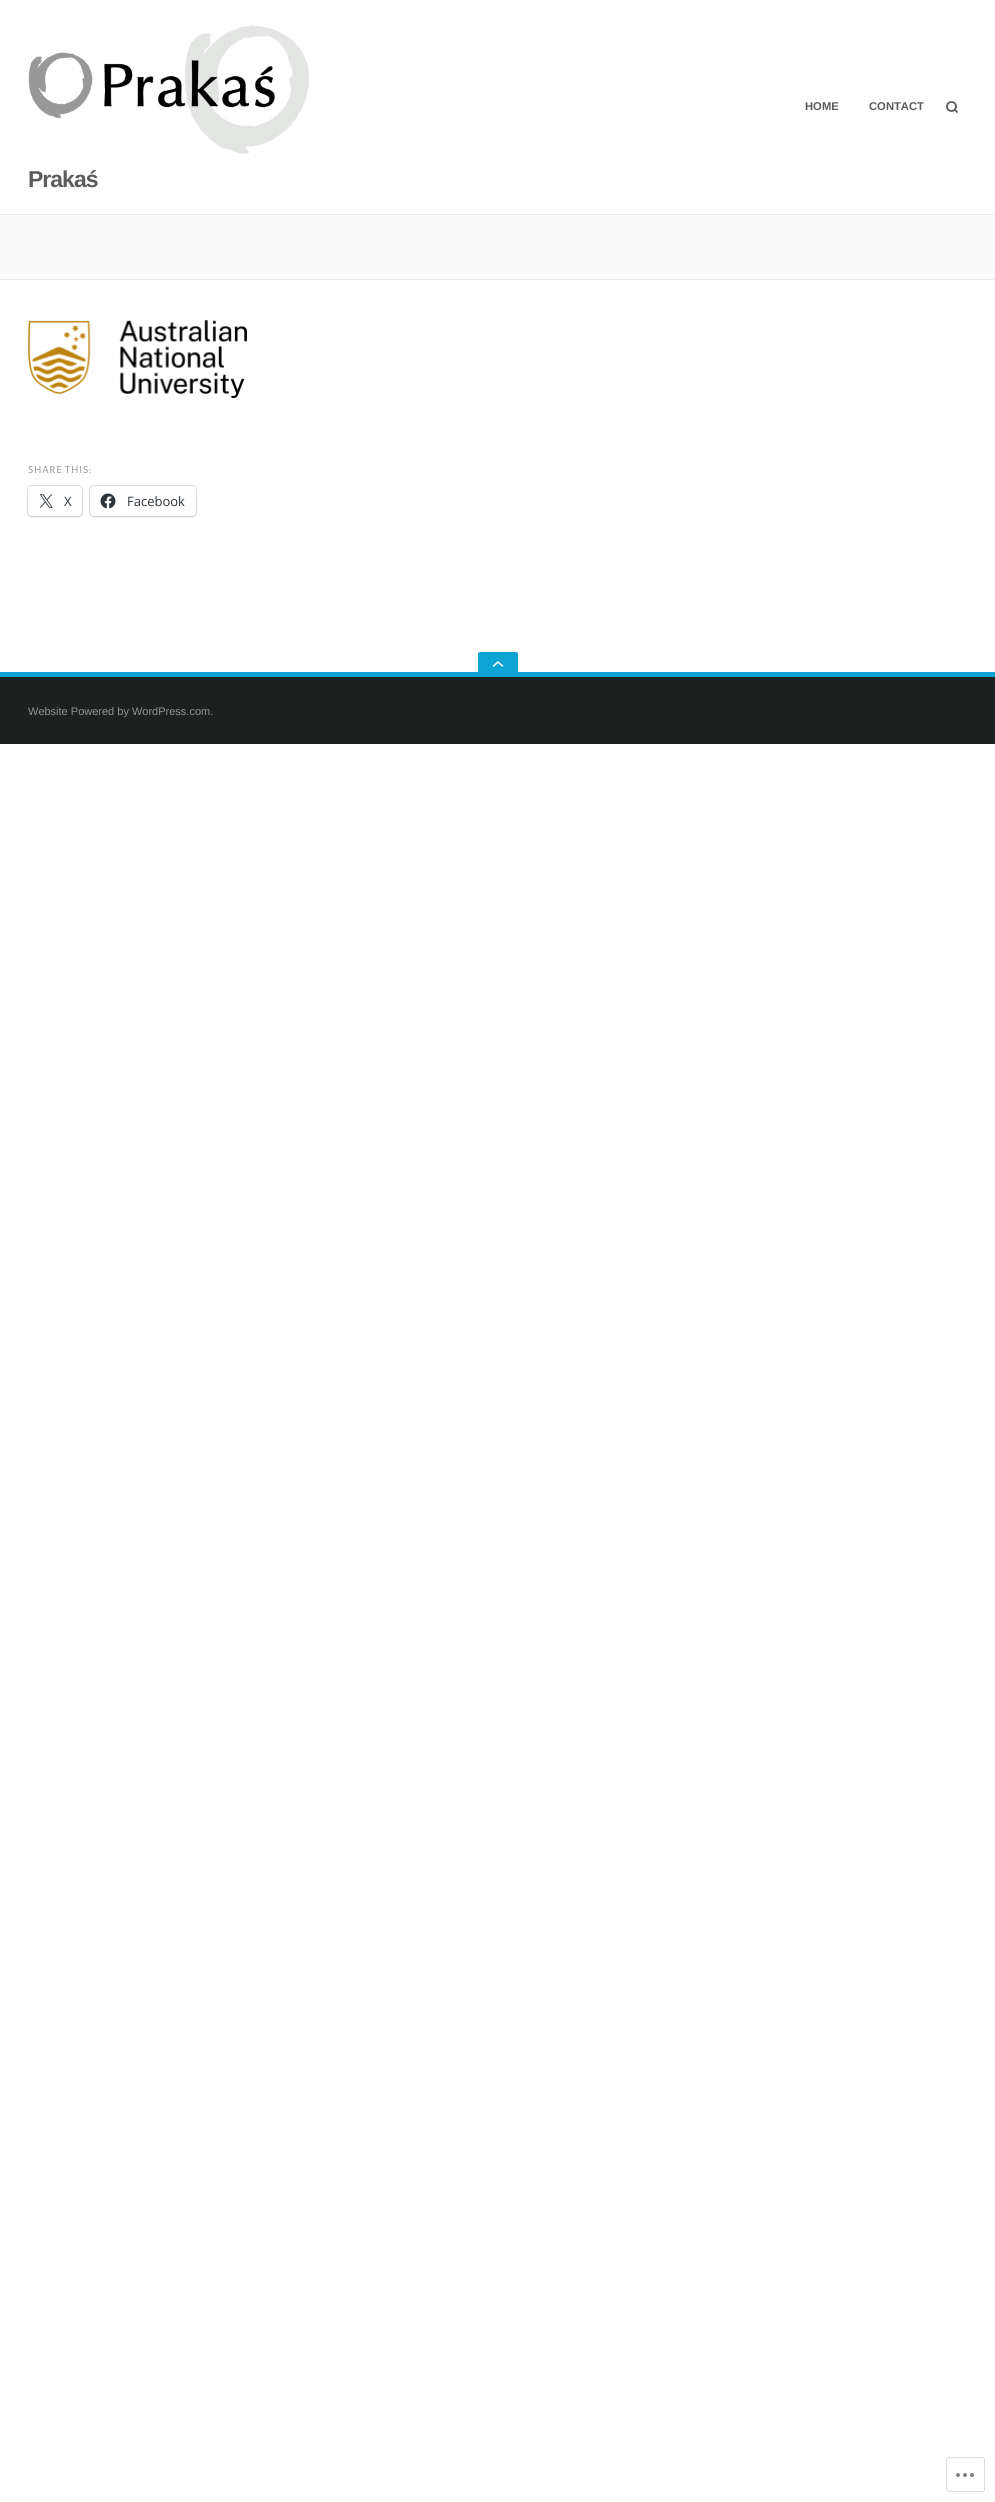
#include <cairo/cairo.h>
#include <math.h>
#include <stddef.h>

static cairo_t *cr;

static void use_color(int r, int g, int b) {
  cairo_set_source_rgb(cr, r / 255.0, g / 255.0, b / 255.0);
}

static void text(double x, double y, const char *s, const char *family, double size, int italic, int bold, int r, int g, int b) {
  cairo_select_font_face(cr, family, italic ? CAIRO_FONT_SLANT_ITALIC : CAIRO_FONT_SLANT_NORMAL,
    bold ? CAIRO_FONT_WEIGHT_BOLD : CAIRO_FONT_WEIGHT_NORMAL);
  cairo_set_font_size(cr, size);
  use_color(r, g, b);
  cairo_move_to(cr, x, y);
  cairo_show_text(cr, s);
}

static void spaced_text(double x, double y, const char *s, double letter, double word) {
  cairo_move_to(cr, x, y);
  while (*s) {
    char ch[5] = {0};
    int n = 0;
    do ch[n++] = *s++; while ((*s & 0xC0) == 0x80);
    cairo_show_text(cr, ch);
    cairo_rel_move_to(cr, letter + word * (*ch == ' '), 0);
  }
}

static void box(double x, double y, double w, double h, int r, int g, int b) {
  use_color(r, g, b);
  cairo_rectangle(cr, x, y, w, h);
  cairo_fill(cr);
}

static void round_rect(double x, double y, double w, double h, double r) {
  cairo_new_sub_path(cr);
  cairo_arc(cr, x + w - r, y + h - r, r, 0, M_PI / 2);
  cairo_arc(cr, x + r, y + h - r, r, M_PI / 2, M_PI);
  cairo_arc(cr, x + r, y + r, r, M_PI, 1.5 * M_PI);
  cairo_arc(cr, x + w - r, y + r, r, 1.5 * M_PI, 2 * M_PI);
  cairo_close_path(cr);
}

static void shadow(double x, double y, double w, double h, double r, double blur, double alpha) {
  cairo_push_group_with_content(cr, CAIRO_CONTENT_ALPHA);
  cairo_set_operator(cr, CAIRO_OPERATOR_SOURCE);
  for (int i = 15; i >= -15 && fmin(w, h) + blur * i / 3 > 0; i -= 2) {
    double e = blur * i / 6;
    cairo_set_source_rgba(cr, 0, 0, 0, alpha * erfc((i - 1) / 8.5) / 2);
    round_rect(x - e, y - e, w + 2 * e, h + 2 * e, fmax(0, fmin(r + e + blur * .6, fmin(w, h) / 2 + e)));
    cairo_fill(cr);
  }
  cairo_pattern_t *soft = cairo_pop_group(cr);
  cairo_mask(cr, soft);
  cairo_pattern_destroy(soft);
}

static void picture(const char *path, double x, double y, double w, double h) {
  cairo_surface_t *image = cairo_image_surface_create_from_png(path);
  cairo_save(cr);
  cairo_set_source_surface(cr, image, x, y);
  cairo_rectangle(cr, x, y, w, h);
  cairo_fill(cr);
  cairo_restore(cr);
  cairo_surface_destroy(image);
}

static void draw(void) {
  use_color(255, 255, 255);
  cairo_paint(cr);
  box(0, 214, 995, 1, 235, 236, 238);
  cairo_arc(cr, 951.5, 106.5, 4.5, 0, 2 * M_PI);
  use_color(90, 91, 92);
  cairo_set_line_width(cr, 1.8);
  cairo_stroke(cr);
  cairo_new_path(cr);
  cairo_move_to(cr, 957, 112);
  cairo_line_to(cr, 954.5, 109.5);
  cairo_set_line_cap(cr, CAIRO_LINE_CAP_ROUND);
  cairo_set_line_join(cr, CAIRO_LINE_JOIN_ROUND);
  cairo_stroke(cr);
  picture("img_01.png", 28, 25, 282, 129);
  box(0, 215, 995, 64, 250, 250, 250);
  box(0, 279, 995, 1, 235, 236, 238);
  picture("img_02.png", 28, 320, 219, 78);
  round_rect(27.5, 485.5, 55, 31, 4.5);
  use_color(224, 224, 224);
  cairo_set_line_width(cr, 1);
  cairo_set_line_cap(cr, CAIRO_LINE_CAP_BUTT);
  cairo_set_line_join(cr, CAIRO_LINE_JOIN_MITER);
  cairo_stroke(cr);
  use_color(0, 0, 0);
  shadow(28, 487, 54, 30, 4, 1, 0.12);
  use_color(255, 255, 255);
  round_rect(28, 486, 54, 30, 4);
  cairo_fill(cr);
  picture("img_03.png", 39, 494, 14, 14);
  round_rect(89.5, 485.5, 107, 31, 4.5);
  use_color(224, 224, 224);
  cairo_stroke(cr);
  use_color(0, 0, 0);
  shadow(90, 487, 106, 30, 4, 1, 0.12);
  use_color(255, 255, 255);
  round_rect(90, 486, 106, 30, 4);
  cairo_fill(cr);
  picture("img_04.png", 100, 493, 16, 16);
  box(0, 672, 995, 5, 13, 164, 211);
  cairo_new_path(cr);
  cairo_move_to(cr, 480, 652);
  cairo_line_to(cr, 516, 652);
  cairo_curve_to(cr, 517, 652, 518, 653, 518, 654);
  cairo_line_to(cr, 518, 677);
  cairo_line_to(cr, 478, 677);
  cairo_line_to(cr, 478, 654);
  cairo_curve_to(cr, 478, 653, 479, 652, 480, 652);
  cairo_close_path(cr);
  cairo_fill(cr);
  cairo_new_path(cr);
  cairo_move_to(cr, 502.5, 666);
  cairo_line_to(cr, 498, 662);
  cairo_line_to(cr, 493.5, 666);
  use_color(255, 255, 255);
  cairo_set_line_width(cr, 1.5);
  cairo_set_line_cap(cr, CAIRO_LINE_CAP_ROUND);
  cairo_set_line_join(cr, CAIRO_LINE_JOIN_ROUND);
  cairo_stroke(cr);
  box(0, 678, 995, 66, 30, 31, 31);
  box(0, 677, 995, 1, 27, 28, 28);
  round_rect(946.5, 2457.5, 38, 34, 2.5);
  use_color(221, 221, 223);
  cairo_set_line_width(cr, 1);
  cairo_set_line_cap(cr, CAIRO_LINE_CAP_BUTT);
  cairo_set_line_join(cr, CAIRO_LINE_JOIN_MITER);
  cairo_stroke(cr);
  picture("img_05.png", 956, 2473, 18, 4);
  text(805, 110, "HOME", "Arimo", 11.25, 0, 1, 90, 91, 92);
  text(869, 110, "CONTACT", "Arimo", 11.25, 0, 1, 90, 91, 92);
  cairo_set_font_size(cr, 23);
  spaced_text(28, 187, "Prakaś", -1, 0);
  cairo_select_font_face(cr, "Alegreya Sans", CAIRO_FONT_SLANT_NORMAL, CAIRO_FONT_WEIGHT_NORMAL);
  cairo_set_font_size(cr, 11);
  use_color(146, 147, 148);
  spaced_text(28, 473, "SHARE THIS:", 0.75, 0);
  text(64, 506, "X", "Open Sans", 13, 0, 0, 44, 51, 56);
  text(127, 506, "Facebook", "Open Sans", 13, 0, 0, 44, 51, 56);
  text(28, 715, "Website Powered by WordPress.com.", "Arimo", 11, 0, 0, 146, 147, 148);
}

int main(void) {
  cairo_surface_t *surface = cairo_image_surface_create(CAIRO_FORMAT_RGB24, 995, 2502);
  cr = cairo_create(surface);
  cairo_font_options_t *options = cairo_font_options_create();
  cairo_font_options_set_hint_metrics(options, CAIRO_HINT_METRICS_OFF);
  cairo_font_options_set_hint_style(options, CAIRO_HINT_STYLE_NONE);
  cairo_set_font_options(cr, options);
  cairo_set_miter_limit(cr, 4);
  draw();
  cairo_surface_write_to_png(surface, "out.png");
  cairo_font_options_destroy(options);
  cairo_destroy(cr);
  cairo_surface_destroy(surface);
  return 0;
}
